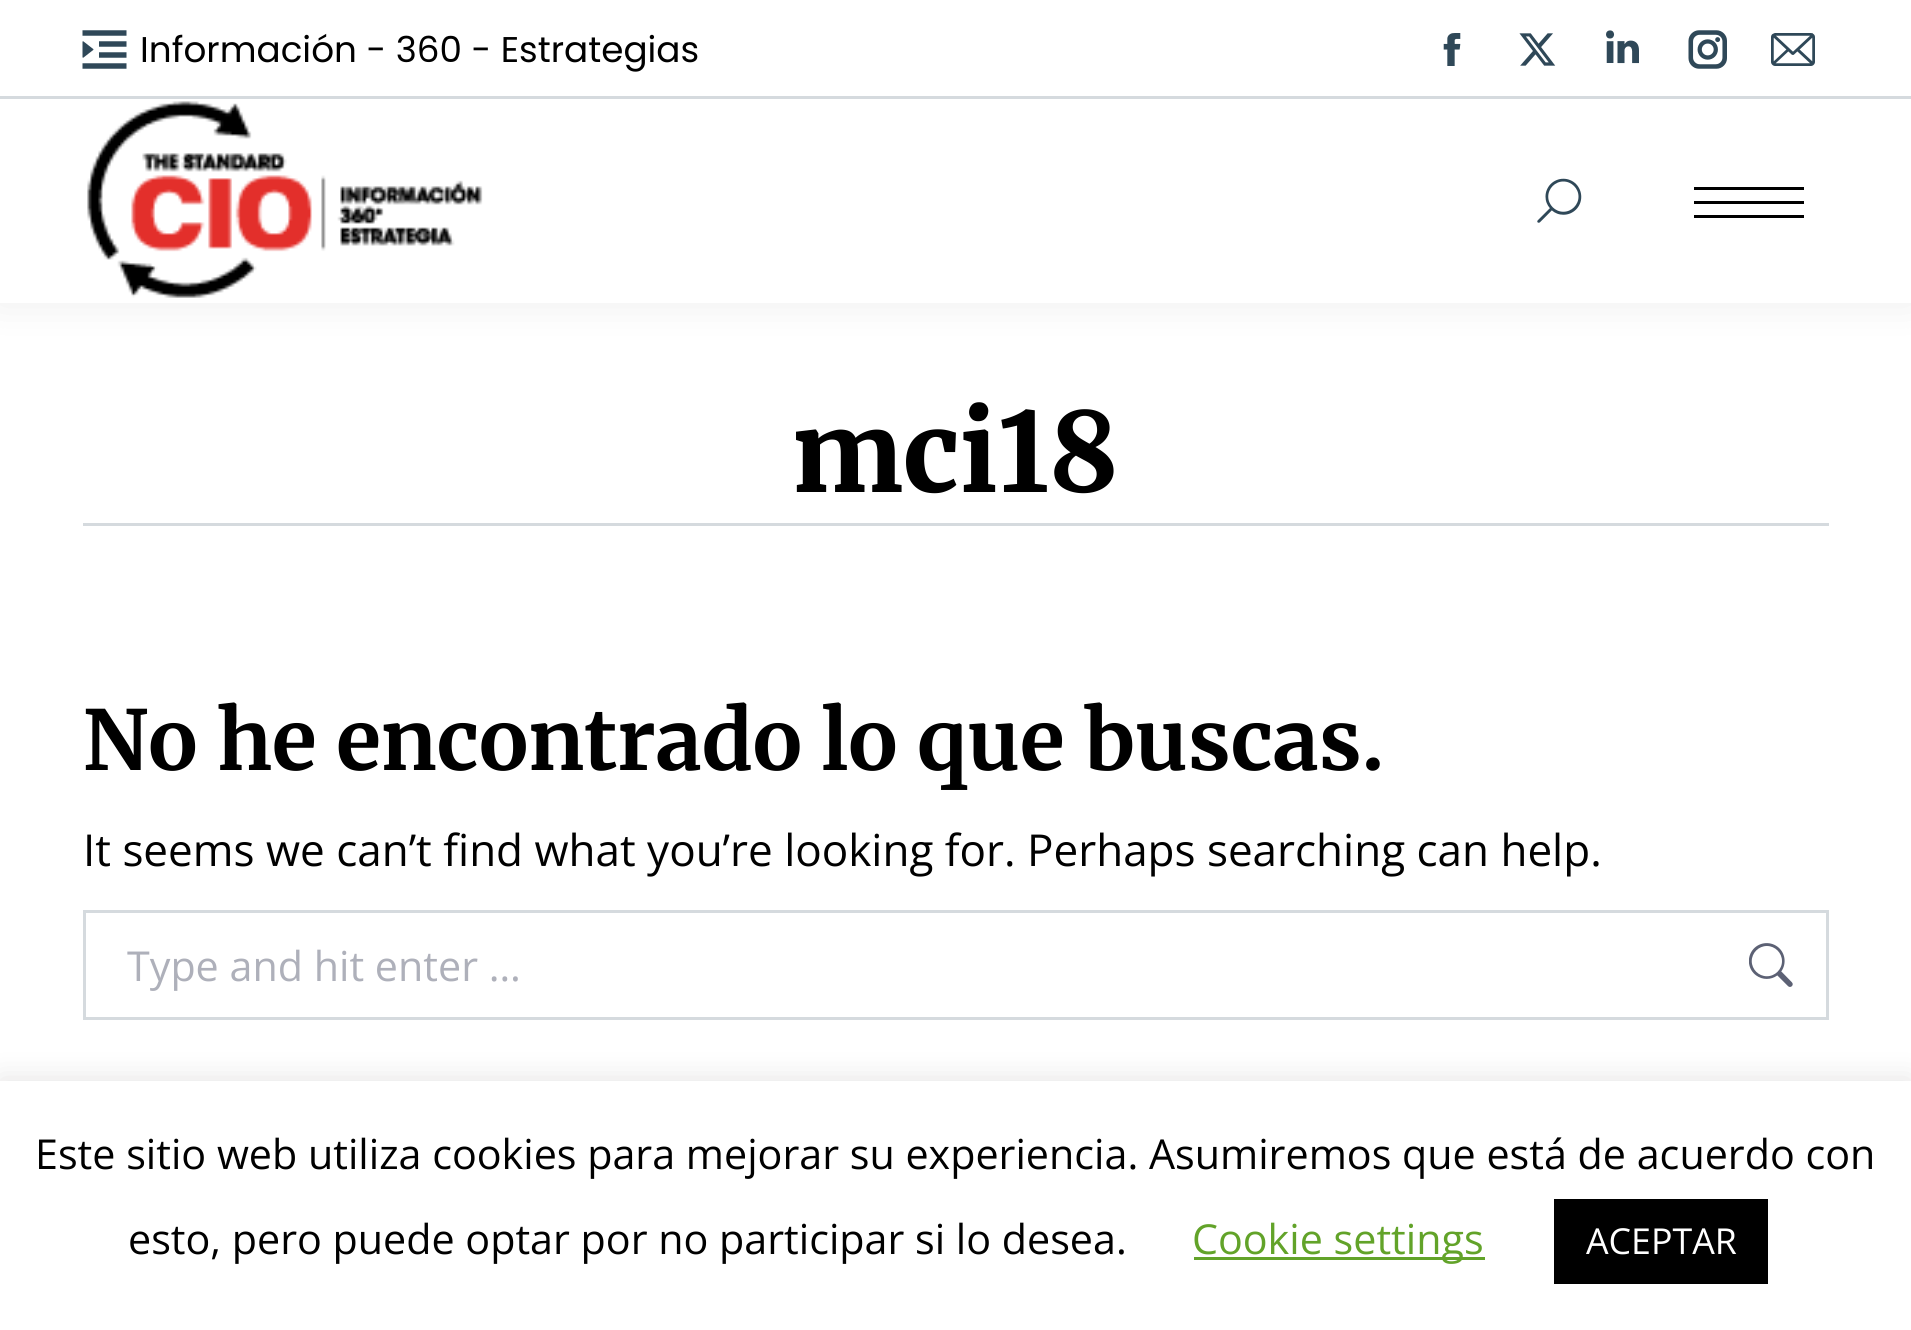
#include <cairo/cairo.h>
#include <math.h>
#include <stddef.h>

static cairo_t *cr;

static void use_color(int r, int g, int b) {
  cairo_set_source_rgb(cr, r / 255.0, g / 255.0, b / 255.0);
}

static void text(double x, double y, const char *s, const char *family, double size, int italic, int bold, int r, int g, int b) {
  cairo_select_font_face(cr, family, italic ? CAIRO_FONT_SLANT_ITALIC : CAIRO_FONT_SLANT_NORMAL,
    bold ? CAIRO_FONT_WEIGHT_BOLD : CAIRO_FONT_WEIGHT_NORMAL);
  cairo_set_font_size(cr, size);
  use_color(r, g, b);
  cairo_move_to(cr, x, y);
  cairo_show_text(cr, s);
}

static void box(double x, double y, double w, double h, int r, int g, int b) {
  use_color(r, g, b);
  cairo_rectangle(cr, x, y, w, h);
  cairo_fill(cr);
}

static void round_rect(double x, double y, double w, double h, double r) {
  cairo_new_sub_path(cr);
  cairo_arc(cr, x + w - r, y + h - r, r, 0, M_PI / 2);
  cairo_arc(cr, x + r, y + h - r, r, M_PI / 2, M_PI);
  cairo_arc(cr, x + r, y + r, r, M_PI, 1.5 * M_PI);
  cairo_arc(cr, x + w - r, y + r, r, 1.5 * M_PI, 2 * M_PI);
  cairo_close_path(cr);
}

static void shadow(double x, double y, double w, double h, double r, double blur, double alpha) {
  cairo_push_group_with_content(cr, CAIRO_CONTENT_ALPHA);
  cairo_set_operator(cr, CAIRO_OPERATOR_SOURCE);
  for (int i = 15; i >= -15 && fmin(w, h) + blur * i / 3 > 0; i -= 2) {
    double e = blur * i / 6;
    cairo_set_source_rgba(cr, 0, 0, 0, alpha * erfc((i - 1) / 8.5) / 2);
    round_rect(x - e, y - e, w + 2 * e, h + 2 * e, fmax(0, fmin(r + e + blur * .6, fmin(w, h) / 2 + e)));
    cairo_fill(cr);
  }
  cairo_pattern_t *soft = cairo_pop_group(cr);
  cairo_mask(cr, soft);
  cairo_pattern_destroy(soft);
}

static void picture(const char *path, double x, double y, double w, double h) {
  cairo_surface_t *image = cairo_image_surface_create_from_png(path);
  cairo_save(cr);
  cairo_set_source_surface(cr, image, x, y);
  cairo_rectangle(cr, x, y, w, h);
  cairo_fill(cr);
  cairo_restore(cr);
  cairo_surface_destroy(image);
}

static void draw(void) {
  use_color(255, 255, 255);
  cairo_paint(cr);
  use_color(0, 0, 0);
  shadow(-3, -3, 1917, 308, 0, 20.5, 0.07);
  box(0, 0, 1911, 303, 255, 255, 255);
  picture("img_01.png", 82, 30, 45, 39);
  picture("img_02.png", 1443, 33, 18, 33);
  picture("img_03.png", 1519, 33, 37, 33);
  picture("img_04.png", 1606, 30, 33, 34);
  picture("img_05.png", 1688, 30, 39, 39);
  picture("img_06.png", 1771, 33, 44, 33);
  box(0, 96, 1911, 3, 213, 218, 222);
  picture("img_07.png", 87, 101, 396, 197);
  picture("img_08.png", 1537, 178, 45, 45);
  box(1694, 187, 110, 3, 0, 0, 0);
  box(1694, 201, 110, 3, 0, 0, 0);
  box(1694, 215, 110, 3, 0, 0, 0);
  box(83, 523, 1746, 3, 213, 218, 222);
  cairo_rectangle(cr, 84.5, 911.5, 1743, 107);
  cairo_set_line_width(cr, 3);
  cairo_stroke(cr);
  picture("img_09.png", 1749, 943, 44, 44);
  use_color(172, 171, 171);
  shadow(0, 1078, 1911, 250, 0, 14, 0.3);
  box(0, 1081, 1911, 249, 255, 255, 255);
  box(1194, 1257, 291, 3, 98, 163, 41);
  box(1554, 1199, 214, 85, 0, 0, 0);
  text(140, 62, "Información - 360 - Estrategias", "Poppins", 35.75, 0, 0, 0, 0, 0);
  text(792, 492, "mci18", "Merriweather ExtraBold", 110, 0, 0, 0, 0, 0);
  text(83, 770, "No he encontrado lo que buscas.", "Merriweather", 82.5, 0, 1, 0, 0, 0);
  text(83, 866, "It seems we can’t find what you’re looking for. Perhaps searching can help.", "Open Sans", 44, 0, 0, 0, 0, 0);
  cairo_save(cr);
  cairo_rectangle(cr, 127, 938, 1617, 55);
  cairo_clip(cr);
  text(127, 981, "Type and hit enter …", "Open Sans", 41.25, 0, 0, 174, 176, 186);
  cairo_restore(cr);
  text(35, 1169, "Este sitio web utiliza cookies para mejorar su experiencia. Asumiremos que está de acuerdo con", "Open Sans", 41.25, 0, 0, 0, 0, 0);
  text(128, 1254, "esto, pero puede optar por no participar si lo desea.", "Open Sans", 41.25, 0, 0, 0, 0, 0);
  text(1192, 1254, "Cookie settings", "Open Sans", 41.25, 0, 0, 98, 163, 41);
  text(1586, 1254, "ACEPTAR", "Open Sans", 35.75, 0, 0, 255, 255, 255);
}

int main(void) {
  cairo_surface_t *surface = cairo_image_surface_create(CAIRO_FORMAT_RGB24, 1911, 1330);
  cr = cairo_create(surface);
  cairo_font_options_t *options = cairo_font_options_create();
  cairo_font_options_set_hint_metrics(options, CAIRO_HINT_METRICS_OFF);
  cairo_font_options_set_hint_style(options, CAIRO_HINT_STYLE_NONE);
  cairo_set_font_options(cr, options);
  cairo_set_miter_limit(cr, 4);
  draw();
  cairo_surface_write_to_png(surface, "out.png");
  cairo_font_options_destroy(options);
  cairo_destroy(cr);
  cairo_surface_destroy(surface);
  return 0;
}
